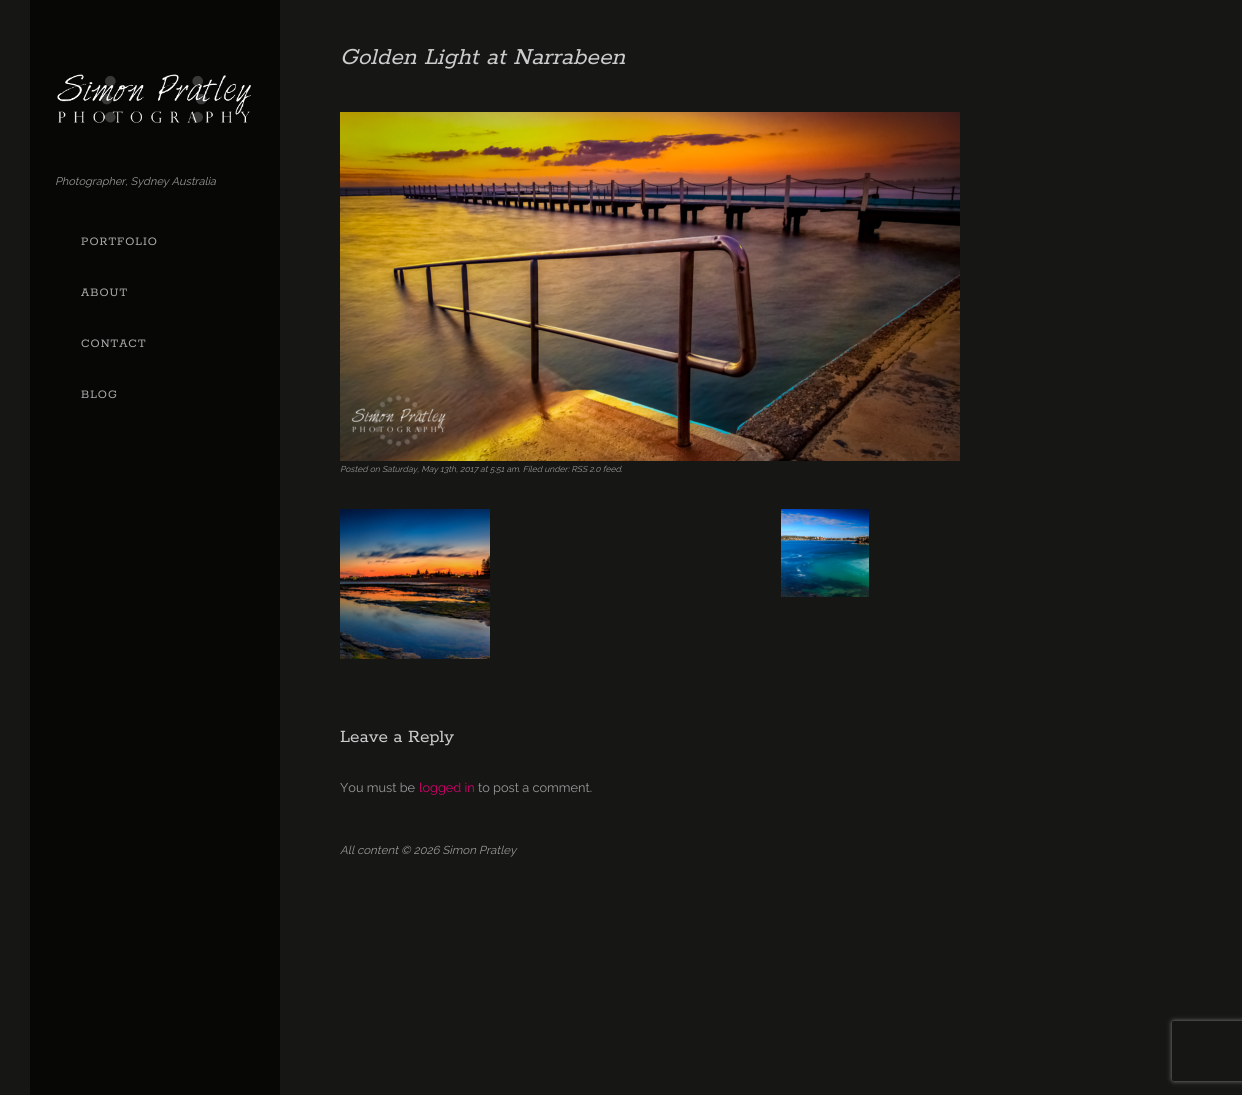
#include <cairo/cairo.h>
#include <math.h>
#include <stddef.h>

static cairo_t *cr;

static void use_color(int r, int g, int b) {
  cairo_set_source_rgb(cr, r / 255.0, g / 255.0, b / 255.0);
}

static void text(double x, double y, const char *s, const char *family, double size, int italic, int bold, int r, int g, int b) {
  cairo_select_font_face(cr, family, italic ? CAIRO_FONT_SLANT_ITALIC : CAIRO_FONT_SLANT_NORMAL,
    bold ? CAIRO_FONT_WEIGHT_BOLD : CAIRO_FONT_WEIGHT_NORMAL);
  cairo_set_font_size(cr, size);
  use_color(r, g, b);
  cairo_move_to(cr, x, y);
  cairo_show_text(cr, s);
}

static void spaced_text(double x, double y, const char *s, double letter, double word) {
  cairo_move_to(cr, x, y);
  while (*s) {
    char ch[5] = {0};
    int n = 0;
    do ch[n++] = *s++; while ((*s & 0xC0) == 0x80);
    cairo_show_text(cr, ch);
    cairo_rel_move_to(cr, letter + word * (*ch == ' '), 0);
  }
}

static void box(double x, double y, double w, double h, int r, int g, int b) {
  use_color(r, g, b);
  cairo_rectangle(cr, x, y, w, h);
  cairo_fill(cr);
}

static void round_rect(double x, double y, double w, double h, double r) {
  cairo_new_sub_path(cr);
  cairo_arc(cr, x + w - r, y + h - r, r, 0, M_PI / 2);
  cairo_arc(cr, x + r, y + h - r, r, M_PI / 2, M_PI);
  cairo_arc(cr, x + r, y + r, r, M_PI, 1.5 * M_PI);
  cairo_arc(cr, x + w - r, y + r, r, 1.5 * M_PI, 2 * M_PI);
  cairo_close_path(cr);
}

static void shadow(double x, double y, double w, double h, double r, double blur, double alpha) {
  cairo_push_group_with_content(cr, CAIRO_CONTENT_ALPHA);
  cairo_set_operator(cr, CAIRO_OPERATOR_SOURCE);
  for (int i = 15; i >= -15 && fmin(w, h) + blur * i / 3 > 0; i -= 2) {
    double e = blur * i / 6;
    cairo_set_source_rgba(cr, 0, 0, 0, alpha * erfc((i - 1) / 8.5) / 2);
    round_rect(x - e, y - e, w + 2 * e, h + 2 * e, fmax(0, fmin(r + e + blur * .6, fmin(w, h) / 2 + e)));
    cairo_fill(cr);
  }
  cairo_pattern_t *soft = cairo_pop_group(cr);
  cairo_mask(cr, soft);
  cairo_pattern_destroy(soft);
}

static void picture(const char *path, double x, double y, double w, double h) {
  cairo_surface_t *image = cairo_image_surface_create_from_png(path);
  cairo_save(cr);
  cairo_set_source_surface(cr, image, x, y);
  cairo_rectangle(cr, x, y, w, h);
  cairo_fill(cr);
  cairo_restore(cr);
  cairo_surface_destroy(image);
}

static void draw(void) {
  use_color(22, 22, 21);
  cairo_paint(cr);
  box(30, 0, 250, 1095, 7, 7, 6);
  picture("img_01.png", 57, 74, 194, 49);
  picture("img_02.png", 340, 112, 620, 349);
  picture("img_03.png", 340, 509, 150, 150);
  picture("img_04.png", 781, 509, 88, 88);
  cairo_save(cr);
  cairo_set_fill_rule(cr, CAIRO_FILL_RULE_EVEN_ODD);
  cairo_new_path(cr);
  cairo_move_to(cr, 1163, 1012);
  cairo_line_to(cr, 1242, 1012);
  cairo_line_to(cr, 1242, 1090);
  cairo_line_to(cr, 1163, 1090);
  cairo_close_path(cr);
  cairo_move_to(cr, 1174, 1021);
  cairo_line_to(cr, 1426, 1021);
  cairo_curve_to(cr, 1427, 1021, 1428, 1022, 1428, 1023);
  cairo_line_to(cr, 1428, 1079);
  cairo_curve_to(cr, 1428, 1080, 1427, 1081, 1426, 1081);
  cairo_line_to(cr, 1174, 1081);
  cairo_curve_to(cr, 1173, 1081, 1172, 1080, 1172, 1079);
  cairo_line_to(cr, 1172, 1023);
  cairo_curve_to(cr, 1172, 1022, 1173, 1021, 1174, 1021);
  cairo_close_path(cr);
  cairo_clip(cr);
  use_color(128, 128, 128);
  shadow(1172, 1021, 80, 60, 2, 2.5, 1);
  cairo_restore(cr);
  text(55, 185, "Photographer, Sydney Australia", "Raleway", 11, 1, 0, 153, 153, 153);
  cairo_select_font_face(cr, "Rokkitt", CAIRO_FONT_SLANT_NORMAL, CAIRO_FONT_WEIGHT_NORMAL);
  cairo_set_font_size(cr, 12.75);
  use_color(170, 170, 170);
  spaced_text(81, 245, "PORTFOLIO", 1, 0);
  spaced_text(81, 296, "ABOUT", 1, 0);
  spaced_text(81, 347, "CONTACT", 1, 0);
  spaced_text(81, 398, "BLOG", 1, 0);
  text(340, 64, "Golden Light at Narrabeen", "Rokkitt", 25.6, 1, 0, 204, 204, 204);
  text(340, 472, "Posted on Saturday, May 13th, 2017 at 5:51 am. Filed under: RSS 2.0 feed.", "Raleway", 8.5, 1, 0, 153, 153, 153);
  text(340, 742, "Leave a Reply", "Rokkitt", 19.25, 0, 0, 204, 204, 204);
  text(340, 792, "You must be", "Raleway", 12.75, 0, 0, 153, 153, 153);
  text(419, 792, "logged in", "Raleway", 12.75, 0, 0, 214, 0, 107);
  text(478, 792, "to post a comment.", "Raleway", 12.75, 0, 0, 153, 153, 153);
  text(340, 854, "All content © 2026 Simon Pratley", "Raleway", 11.5, 1, 0, 153, 153, 153);
}

int main(void) {
  cairo_surface_t *surface = cairo_image_surface_create(CAIRO_FORMAT_RGB24, 1242, 1095);
  cr = cairo_create(surface);
  cairo_font_options_t *options = cairo_font_options_create();
  cairo_font_options_set_hint_metrics(options, CAIRO_HINT_METRICS_OFF);
  cairo_font_options_set_hint_style(options, CAIRO_HINT_STYLE_NONE);
  cairo_set_font_options(cr, options);
  cairo_set_miter_limit(cr, 4);
  draw();
  cairo_surface_write_to_png(surface, "out.png");
  cairo_font_options_destroy(options);
  cairo_destroy(cr);
  cairo_surface_destroy(surface);
  return 0;
}
